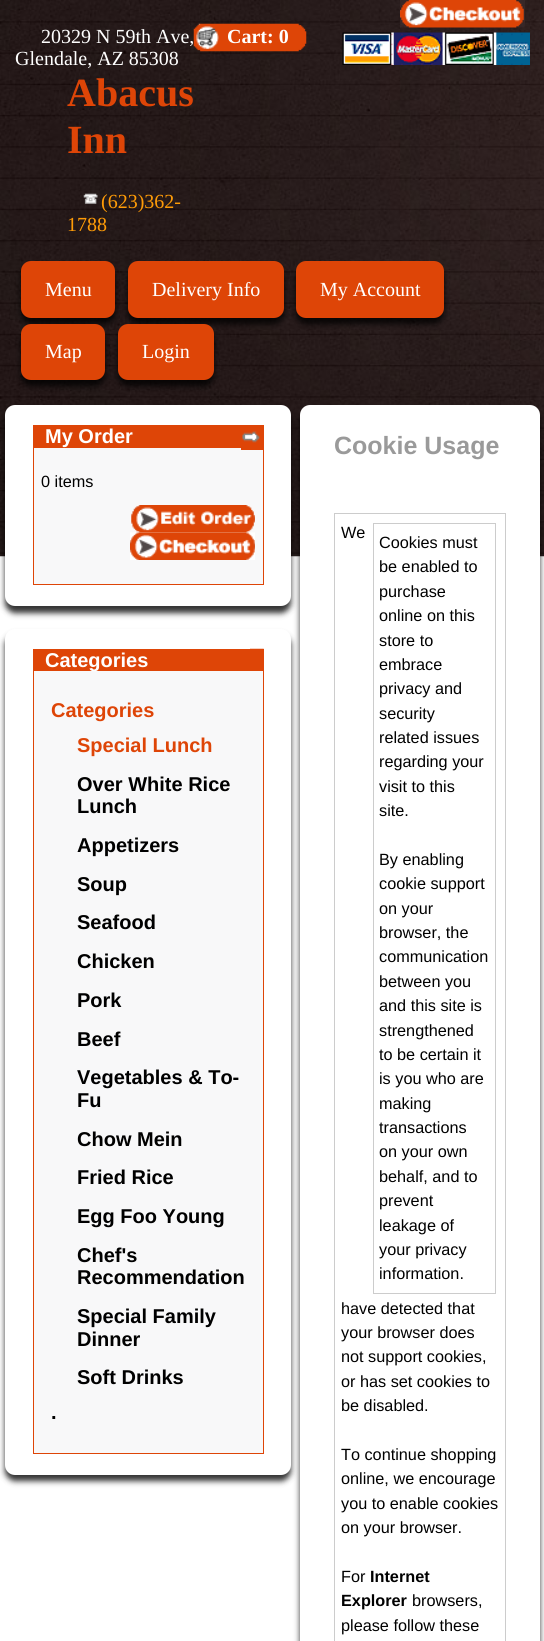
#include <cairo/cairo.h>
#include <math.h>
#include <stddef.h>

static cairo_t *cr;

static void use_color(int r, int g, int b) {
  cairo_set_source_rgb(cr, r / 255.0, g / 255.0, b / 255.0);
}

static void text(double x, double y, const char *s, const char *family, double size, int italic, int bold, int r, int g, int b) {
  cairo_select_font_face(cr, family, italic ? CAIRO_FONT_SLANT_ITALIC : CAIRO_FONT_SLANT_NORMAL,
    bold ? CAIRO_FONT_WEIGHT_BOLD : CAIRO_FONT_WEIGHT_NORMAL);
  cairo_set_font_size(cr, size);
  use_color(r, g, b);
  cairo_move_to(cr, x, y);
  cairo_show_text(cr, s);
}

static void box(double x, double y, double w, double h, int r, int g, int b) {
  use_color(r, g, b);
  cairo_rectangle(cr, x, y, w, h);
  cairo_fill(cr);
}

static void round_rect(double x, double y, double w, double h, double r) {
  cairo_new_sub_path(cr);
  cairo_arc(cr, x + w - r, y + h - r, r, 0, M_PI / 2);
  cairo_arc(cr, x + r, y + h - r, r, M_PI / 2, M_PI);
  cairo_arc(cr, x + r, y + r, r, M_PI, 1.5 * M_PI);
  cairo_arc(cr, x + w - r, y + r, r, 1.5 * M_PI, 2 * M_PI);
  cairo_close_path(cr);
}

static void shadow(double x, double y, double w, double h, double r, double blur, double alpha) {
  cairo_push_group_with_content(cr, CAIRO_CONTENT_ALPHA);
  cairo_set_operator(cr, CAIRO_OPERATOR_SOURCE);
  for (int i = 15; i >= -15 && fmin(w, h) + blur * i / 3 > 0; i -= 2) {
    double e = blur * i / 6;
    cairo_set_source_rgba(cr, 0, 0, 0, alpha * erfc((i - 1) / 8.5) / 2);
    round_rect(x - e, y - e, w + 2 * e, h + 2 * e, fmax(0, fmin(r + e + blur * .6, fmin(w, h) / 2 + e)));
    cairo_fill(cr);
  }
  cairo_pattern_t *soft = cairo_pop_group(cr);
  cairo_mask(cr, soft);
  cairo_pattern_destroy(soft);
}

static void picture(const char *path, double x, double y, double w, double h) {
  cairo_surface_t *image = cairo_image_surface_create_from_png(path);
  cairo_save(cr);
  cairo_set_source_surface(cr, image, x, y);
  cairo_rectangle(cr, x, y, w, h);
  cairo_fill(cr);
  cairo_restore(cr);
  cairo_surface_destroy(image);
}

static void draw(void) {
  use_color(255, 255, 255);
  cairo_paint(cr);
  picture("img_01.png", 0, 0, 544, 557);
  picture("img_02.png", 193, 23, 114, 29);
  picture("img_03.png", 400, 0, 125, 28);
  picture("img_04.png", 342, 32, 188, 33);
  picture("img_05.png", 83, 193, 15, 11);
  use_color(0, 0, 0);
  shadow(21, 268, 94, 56, 10, 3, 0.8);
  use_color(222, 69, 7);
  round_rect(21, 261, 94, 57, 10);
  cairo_fill(cr);
  use_color(0, 0, 0);
  shadow(128, 268, 156, 56, 10, 3, 0.8);
  use_color(222, 69, 7);
  round_rect(128, 261, 156, 57, 10);
  cairo_fill(cr);
  use_color(0, 0, 0);
  shadow(296, 268, 148, 56, 10, 3, 0.8);
  use_color(222, 69, 7);
  round_rect(296, 261, 148, 57, 10);
  cairo_fill(cr);
  use_color(0, 0, 0);
  shadow(21, 330, 84, 56, 10, 3, 0.8);
  use_color(222, 69, 7);
  round_rect(21, 324, 84, 56, 10);
  cairo_fill(cr);
  use_color(0, 0, 0);
  shadow(118, 330, 96, 56, 10, 3, 0.8);
  use_color(222, 69, 7);
  round_rect(118, 324, 96, 56, 10);
  cairo_fill(cr);
  use_color(0, 0, 0);
  shadow(5, 411, 286, 202, 10, 3, 0.8);
  use_color(255, 255, 255);
  round_rect(5, 405, 286, 201, 10);
  cairo_fill(cr);
  box(33, 425, 208, 23, 222, 69, 7);
  box(241, 425, 23, 4, 222, 69, 7);
  box(33, 448, 231, 137, 222, 69, 7);
  box(34, 448, 229, 136, 248, 248, 249);
  box(241, 429, 23, 21, 222, 69, 7);
  picture("img_06.png", 242, 431, 18, 12);
  picture("img_07.png", 131, 505, 124, 28);
  picture("img_08.png", 130, 532, 125, 28);
  use_color(0, 0, 0);
  shadow(5, 635, 286, 846, 10, 3, 0.8);
  use_color(255, 255, 255);
  round_rect(5, 629, 286, 846, 10);
  cairo_fill(cr);
  picture("img_09.png", 250, 648, 14, 1);
  box(33, 649, 231, 805, 222, 69, 7);
  box(34, 671, 229, 782, 248, 248, 249);
  use_color(0, 0, 0);
  shadow(300, 411, 240, 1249, 10, 3, 0.8);
  use_color(255, 255, 255);
  round_rect(300, 405, 240, 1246, 10);
  cairo_fill(cr);
  box(334, 513, 172, 1128, 204, 204, 204);
  box(335, 514, 170, 1127, 255, 255, 255);
  box(373, 523, 123, 771, 204, 204, 204);
  box(374, 524, 121, 769, 255, 255, 255);
  text(41, 43, "20329 N 59th Ave,", "Liberation Serif", 20, 0, 0, 255, 255, 255);
  text(15, 65, "Glendale, AZ 85308", "Liberation Serif", 20, 0, 0, 255, 255, 255);
  text(227, 43, "Cart: 0", "Liberation Serif", 20, 0, 1, 255, 255, 255);
  text(67, 106, "Abacus", "Liberation Serif", 40, 0, 1, 222, 69, 7);
  text(67, 153, "Inn", "Liberation Serif", 40, 0, 1, 222, 69, 7);
  text(101, 208, "(623)362-", "Liberation Serif", 20, 0, 0, 254, 155, 7);
  text(67, 231, "1788", "Liberation Serif", 20, 0, 0, 254, 155, 7);
  text(45, 296, "Menu", "Liberation Serif", 20, 0, 0, 255, 255, 255);
  text(152, 296, "Delivery Info", "Liberation Serif", 20, 0, 0, 255, 255, 255);
  text(320, 296, "My Account", "Liberation Serif", 20, 0, 0, 255, 255, 255);
  text(45, 358, "Map", "Liberation Serif", 20, 0, 0, 255, 255, 255);
  text(142, 358, "Login", "Liberation Serif", 20, 0, 0, 255, 255, 255);
  text(45, 443, "My Order", "Liberation Sans", 20, 0, 1, 255, 255, 255);
  text(41, 487, "0 items", "Liberation Sans", 16.25, 0, 0, 0, 0, 0);
  text(45, 667, "Categories", "Liberation Sans", 20, 0, 1, 255, 255, 255);
  text(51, 717, "Categories", "Liberation Sans", 20, 0, 1, 222, 69, 7);
  text(77, 752, "Special Lunch", "Liberation Sans", 20, 0, 1, 222, 69, 7);
  text(77, 791, "Over White Rice", "Liberation Sans", 20, 0, 1, 0, 0, 0);
  text(77, 813, "Lunch", "Liberation Sans", 20, 0, 1, 0, 0, 0);
  text(77, 852, "Appetizers", "Liberation Sans", 20, 0, 1, 0, 0, 0);
  text(77, 891, "Soup", "Liberation Sans", 20, 0, 1, 0, 0, 0);
  text(77, 929, "Seafood", "Liberation Sans", 20, 0, 1, 0, 0, 0);
  text(77, 968, "Chicken", "Liberation Sans", 20, 0, 1, 0, 0, 0);
  text(77, 1007, "Pork", "Liberation Sans", 20, 0, 1, 0, 0, 0);
  text(77, 1046, "Beef", "Liberation Sans", 20, 0, 1, 0, 0, 0);
  text(77, 1084, "Vegetables & To-", "Liberation Sans", 20, 0, 1, 0, 0, 0);
  text(77, 1107, "Fu", "Liberation Sans", 20, 0, 1, 0, 0, 0);
  text(77, 1146, "Chow Mein", "Liberation Sans", 20, 0, 1, 0, 0, 0);
  text(77, 1184, "Fried Rice", "Liberation Sans", 20, 0, 1, 0, 0, 0);
  text(77, 1223, "Egg Foo Young", "Liberation Sans", 20, 0, 1, 0, 0, 0);
  text(77, 1262, "Chef's", "Liberation Sans", 20, 0, 1, 0, 0, 0);
  text(77, 1284, "Recommendation", "Liberation Sans", 20, 0, 1, 0, 0, 0);
  text(77, 1323, "Special Family", "Liberation Sans", 20, 0, 1, 0, 0, 0);
  text(77, 1346, "Dinner", "Liberation Sans", 20, 0, 1, 0, 0, 0);
  text(77, 1384, "Soft Drinks", "Liberation Sans", 20, 0, 1, 0, 0, 0);
  text(51, 1419, ".", "Liberation Sans", 20, 0, 1, 0, 0, 0);
  text(334, 454, "Cookie Usage", "Liberation Sans", 25, 0, 1, 154, 154, 154);
  text(341, 538, "We", "Liberation Sans", 16.25, 0, 0, 0, 0, 0);
  text(379, 548, "Cookies must", "Liberation Sans", 16.25, 0, 0, 0, 0, 0);
  text(379, 572, "be enabled to", "Liberation Sans", 16.25, 0, 0, 0, 0, 0);
  text(379, 597, "purchase", "Liberation Sans", 16.25, 0, 0, 0, 0, 0);
  text(379, 621, "online on this", "Liberation Sans", 16.25, 0, 0, 0, 0, 0);
  text(379, 646, "store to", "Liberation Sans", 16.25, 0, 0, 0, 0, 0);
  text(379, 670, "embrace", "Liberation Sans", 16.25, 0, 0, 0, 0, 0);
  text(379, 694, "privacy and", "Liberation Sans", 16.25, 0, 0, 0, 0, 0);
  text(379, 719, "security", "Liberation Sans", 16.25, 0, 0, 0, 0, 0);
  text(379, 743, "related issues", "Liberation Sans", 16.25, 0, 0, 0, 0, 0);
  text(379, 767, "regarding your", "Liberation Sans", 16.25, 0, 0, 0, 0, 0);
  text(379, 792, "visit to this", "Liberation Sans", 16.25, 0, 0, 0, 0, 0);
  text(379, 816, "site.", "Liberation Sans", 16.25, 0, 0, 0, 0, 0);
  text(379, 865, "By enabling", "Liberation Sans", 16.25, 0, 0, 0, 0, 0);
  text(379, 889, "cookie support", "Liberation Sans", 16.25, 0, 0, 0, 0, 0);
  text(379, 914, "on your", "Liberation Sans", 16.25, 0, 0, 0, 0, 0);
  text(379, 938, "browser, the", "Liberation Sans", 16.25, 0, 0, 0, 0, 0);
  text(379, 962, "communication", "Liberation Sans", 16.25, 0, 0, 0, 0, 0);
  text(379, 987, "between you", "Liberation Sans", 16.25, 0, 0, 0, 0, 0);
  text(379, 1011, "and this site is", "Liberation Sans", 16.25, 0, 0, 0, 0, 0);
  text(379, 1036, "strengthened", "Liberation Sans", 16.25, 0, 0, 0, 0, 0);
  text(379, 1060, "to be certain it", "Liberation Sans", 16.25, 0, 0, 0, 0, 0);
  text(379, 1084, "is you who are", "Liberation Sans", 16.25, 0, 0, 0, 0, 0);
  text(379, 1109, "making", "Liberation Sans", 16.25, 0, 0, 0, 0, 0);
  text(379, 1133, "transactions", "Liberation Sans", 16.25, 0, 0, 0, 0, 0);
  text(379, 1157, "on your own", "Liberation Sans", 16.25, 0, 0, 0, 0, 0);
  text(379, 1182, "behalf, and to", "Liberation Sans", 16.25, 0, 0, 0, 0, 0);
  text(379, 1206, "prevent", "Liberation Sans", 16.25, 0, 0, 0, 0, 0);
  text(379, 1231, "leakage of", "Liberation Sans", 16.25, 0, 0, 0, 0, 0);
  text(379, 1255, "your privacy", "Liberation Sans", 16.25, 0, 0, 0, 0, 0);
  text(379, 1279, "information.", "Liberation Sans", 16.25, 0, 0, 0, 0, 0);
  text(341, 1314, "have detected that", "Liberation Sans", 16.25, 0, 0, 0, 0, 0);
  text(341, 1338, "your browser does", "Liberation Sans", 16.25, 0, 0, 0, 0, 0);
  text(341, 1362, "not support cookies,", "Liberation Sans", 16.25, 0, 0, 0, 0, 0);
  text(341, 1387, "or has set cookies to", "Liberation Sans", 16.25, 0, 0, 0, 0, 0);
  text(341, 1411, "be disabled.", "Liberation Sans", 16.25, 0, 0, 0, 0, 0);
  text(341, 1460, "To continue shopping", "Liberation Sans", 16.25, 0, 0, 0, 0, 0);
  text(341, 1484, "online, we encourage", "Liberation Sans", 16.25, 0, 0, 0, 0, 0);
  text(341, 1509, "you to enable cookies", "Liberation Sans", 16.25, 0, 0, 0, 0, 0);
  text(341, 1533, "on your browser.", "Liberation Sans", 16.25, 0, 0, 0, 0, 0);
  text(341, 1582, "For", "Liberation Sans", 16.25, 0, 0, 0, 0, 0);
  text(370, 1582, "Internet", "Liberation Sans", 16.25, 0, 1, 0, 0, 0);
  text(341, 1606, "Explorer", "Liberation Sans", 16.25, 0, 1, 0, 0, 0);
  text(412, 1606, "browsers,", "Liberation Sans", 16.25, 0, 0, 0, 0, 0);
  text(341, 1631, "please follow these", "Liberation Sans", 16.25, 0, 0, 0, 0, 0);
}

int main(void) {
  cairo_surface_t *surface = cairo_image_surface_create(CAIRO_FORMAT_RGB24, 544, 1641);
  cr = cairo_create(surface);
  cairo_font_options_t *options = cairo_font_options_create();
  cairo_font_options_set_hint_metrics(options, CAIRO_HINT_METRICS_OFF);
  cairo_font_options_set_hint_style(options, CAIRO_HINT_STYLE_NONE);
  cairo_set_font_options(cr, options);
  cairo_set_miter_limit(cr, 4);
  draw();
  cairo_surface_write_to_png(surface, "out.png");
  cairo_font_options_destroy(options);
  cairo_destroy(cr);
  cairo_surface_destroy(surface);
  return 0;
}
